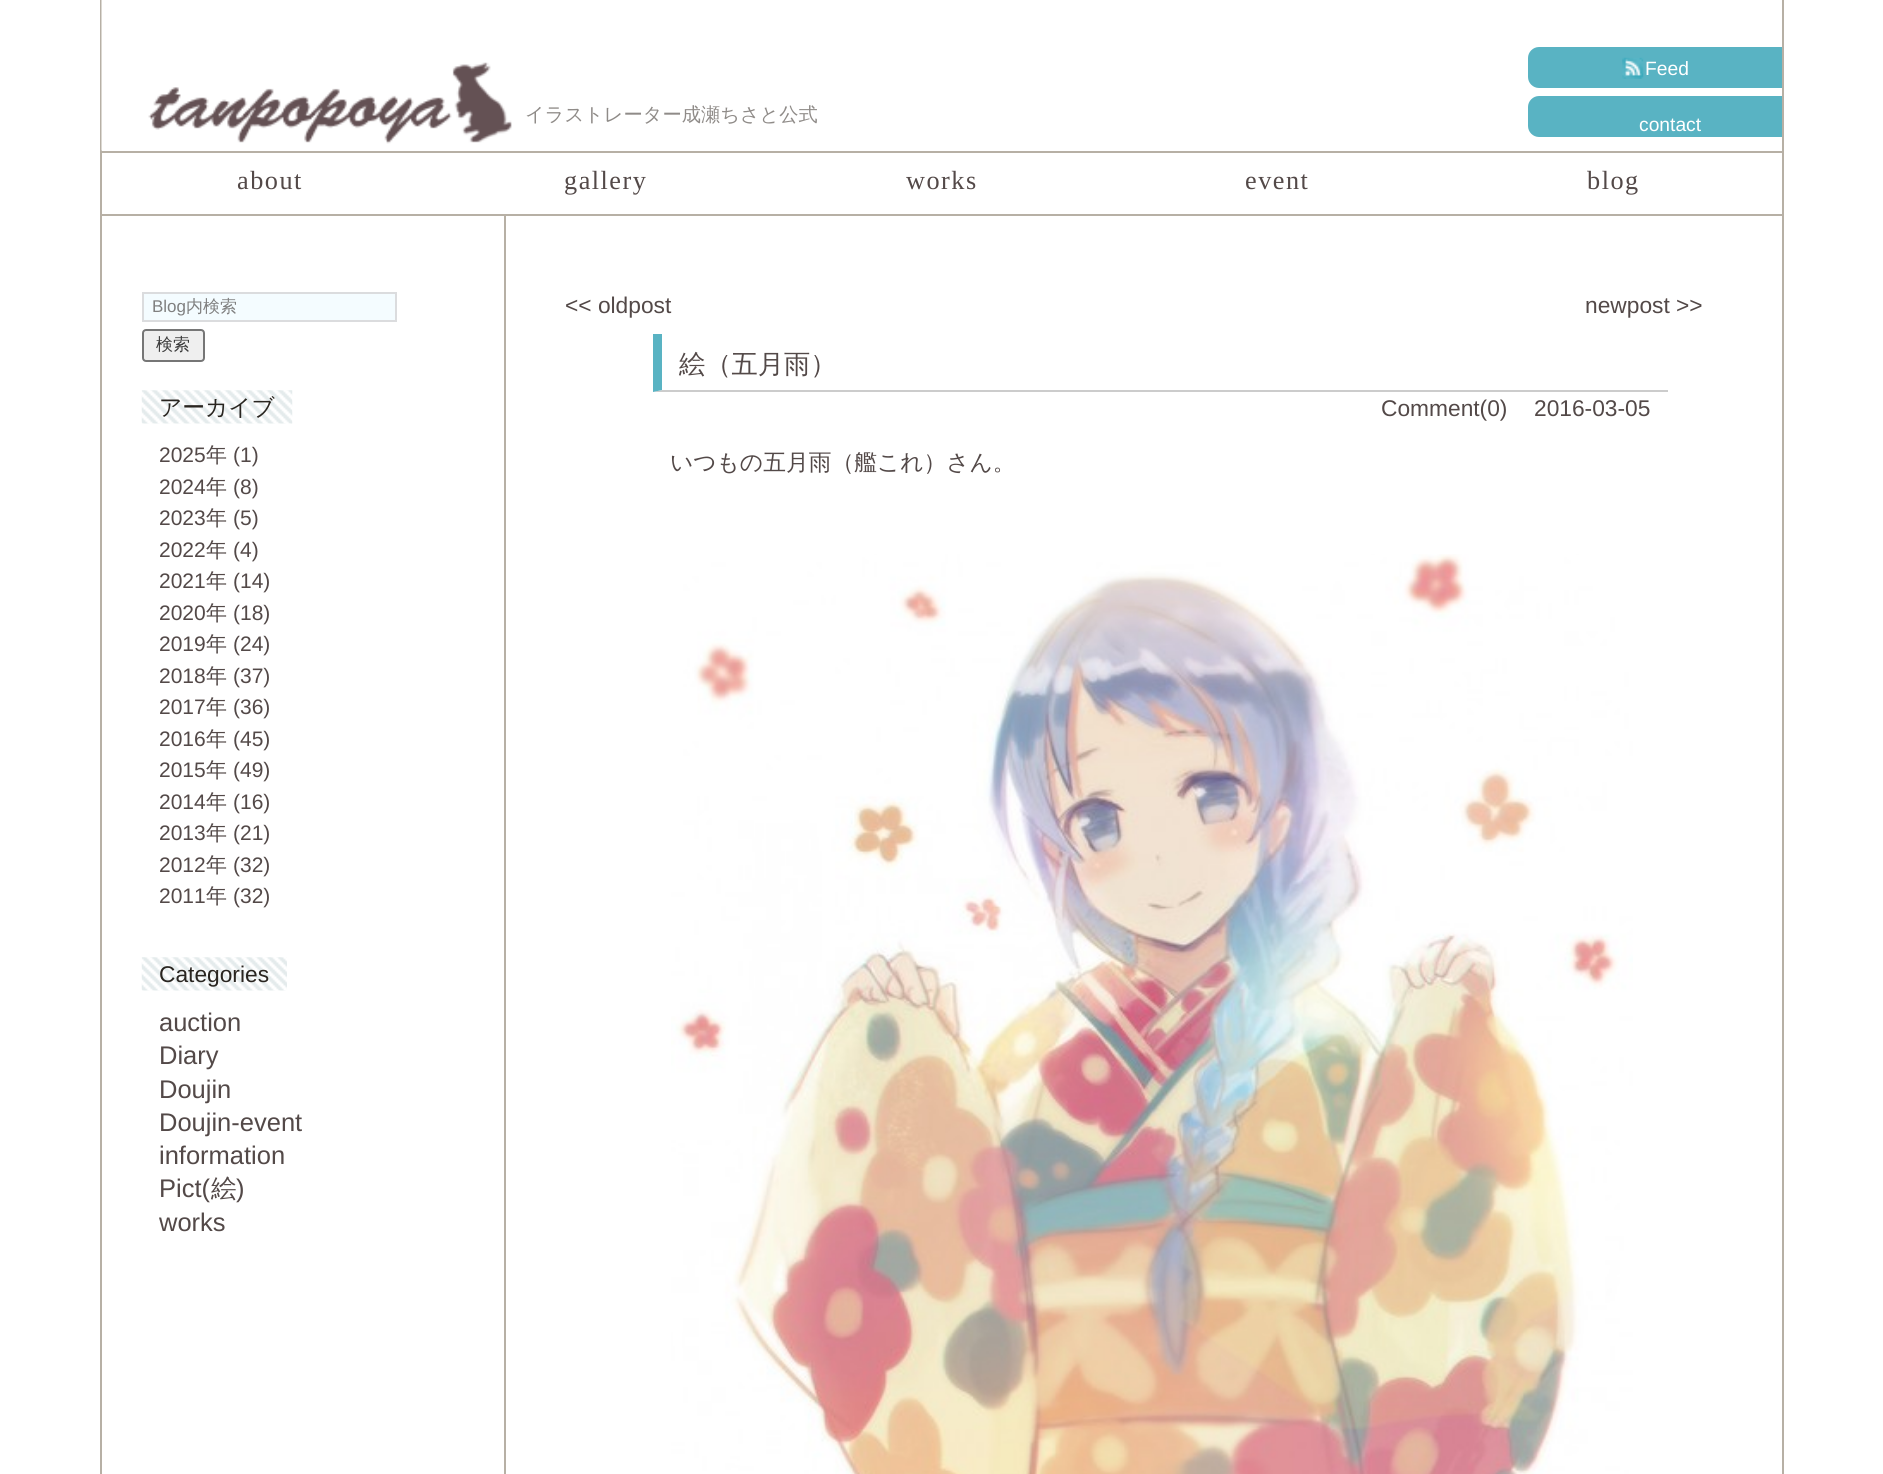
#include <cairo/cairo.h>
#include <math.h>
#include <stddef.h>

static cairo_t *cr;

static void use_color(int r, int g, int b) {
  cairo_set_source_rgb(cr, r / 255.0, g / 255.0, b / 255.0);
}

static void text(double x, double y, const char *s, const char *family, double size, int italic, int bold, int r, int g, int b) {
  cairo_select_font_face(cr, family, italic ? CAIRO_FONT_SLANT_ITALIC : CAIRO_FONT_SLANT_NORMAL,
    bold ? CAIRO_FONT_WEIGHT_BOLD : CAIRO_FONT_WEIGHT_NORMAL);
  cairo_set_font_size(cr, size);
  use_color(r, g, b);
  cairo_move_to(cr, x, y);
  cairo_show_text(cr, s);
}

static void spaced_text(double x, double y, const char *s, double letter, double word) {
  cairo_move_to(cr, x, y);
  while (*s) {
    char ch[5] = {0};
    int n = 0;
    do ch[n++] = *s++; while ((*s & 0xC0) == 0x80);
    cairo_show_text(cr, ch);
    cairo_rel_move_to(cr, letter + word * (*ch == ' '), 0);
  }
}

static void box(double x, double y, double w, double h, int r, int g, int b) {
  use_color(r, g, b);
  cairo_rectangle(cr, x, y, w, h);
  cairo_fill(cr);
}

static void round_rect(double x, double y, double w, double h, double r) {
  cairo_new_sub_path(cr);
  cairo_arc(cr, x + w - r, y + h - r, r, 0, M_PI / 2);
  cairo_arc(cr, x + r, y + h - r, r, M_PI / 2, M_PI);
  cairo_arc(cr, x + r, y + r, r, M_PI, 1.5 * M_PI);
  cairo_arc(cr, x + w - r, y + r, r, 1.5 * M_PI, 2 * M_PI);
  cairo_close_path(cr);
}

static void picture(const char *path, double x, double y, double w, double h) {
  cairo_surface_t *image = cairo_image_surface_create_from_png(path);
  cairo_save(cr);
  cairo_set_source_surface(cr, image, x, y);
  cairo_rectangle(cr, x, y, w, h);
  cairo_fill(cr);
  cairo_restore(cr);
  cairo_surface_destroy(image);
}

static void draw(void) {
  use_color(255, 255, 255);
  cairo_paint(cr);
  box(1782, 0, 2, 1474, 183, 176, 165);
  box(100, 0, 2, 1474, 183, 176, 165);
  picture("img_01.png", 101, 0, 411, 151);
  use_color(89, 179, 195);
  cairo_new_path(cr);
  cairo_move_to(cr, 1539, 47);
  cairo_line_to(cr, 1782, 47);
  cairo_line_to(cr, 1782, 88);
  cairo_line_to(cr, 1539, 88);
  cairo_curve_to(cr, 1533, 88, 1528, 83, 1528, 77);
  cairo_line_to(cr, 1528, 58);
  cairo_curve_to(cr, 1528, 52, 1533, 47, 1539, 47);
  cairo_close_path(cr);
  cairo_fill(cr);
  picture("img_02.png", 1622, 57, 22, 22);
  cairo_new_path(cr);
  cairo_move_to(cr, 1539, 96);
  cairo_line_to(cr, 1782, 96);
  cairo_line_to(cr, 1782, 137);
  cairo_line_to(cr, 1539, 137);
  cairo_curve_to(cr, 1533, 137, 1528, 132, 1528, 126);
  cairo_line_to(cr, 1528, 107);
  cairo_curve_to(cr, 1528, 101, 1533, 96, 1539, 96);
  cairo_close_path(cr);
  cairo_fill(cr);
  box(102, 151, 1680, 2, 183, 176, 165);
  box(102, 214, 1680, 2, 183, 176, 165);
  use_color(244, 252, 255);
  cairo_rectangle(cr, 143, 293, 253, 28);
  cairo_fill_preserve(cr);
  use_color(219, 220, 222);
  cairo_stroke(cr);
  use_color(239, 239, 239);
  round_rect(143, 330, 61, 31, 3);
  cairo_fill_preserve(cr);
  use_color(118, 118, 118);
  cairo_stroke(cr);
  picture("img_03.png", 141, 390, 152, 34);
  picture("img_04.png", 141, 957, 146, 34);
  box(504, 215, 2, 1259, 183, 176, 165);
  use_color(204, 204, 204);
  cairo_new_path(cr);
  cairo_move_to(cr, 1668, 392);
  cairo_line_to(cr, 653, 392);
  cairo_line_to(cr, 662, 390);
  cairo_line_to(cr, 1668, 390);
  cairo_close_path(cr);
  cairo_fill(cr);
  use_color(89, 179, 195);
  cairo_new_path(cr);
  cairo_move_to(cr, 653, 392);
  cairo_line_to(cr, 653, 334);
  cairo_line_to(cr, 662, 334);
  cairo_line_to(cr, 662, 390);
  cairo_close_path(cr);
  cairo_fill(cr);
  picture("img_05.png", 671, 554, 962, 920);
  text(525, 121, "イラストレーター成瀬ちさと公式", "WenQuanYi Zen Hei Medium", 19.25, 0, 0, 143, 139, 136);
  text(1645, 75, "Feed", "Liberation Sans", 19.25, 0, 0, 255, 255, 255);
  text(1639, 131, "contact", "Liberation Sans", 19.25, 0, 0, 255, 255, 255);
  cairo_select_font_face(cr, "Liberation Serif", CAIRO_FONT_SLANT_NORMAL, CAIRO_FONT_WEIGHT_NORMAL);
  cairo_set_font_size(cr, 26.25);
  use_color(83, 73, 72);
  spaced_text(237, 189, "about", 1.5, 0);
  spaced_text(564, 189, "gallery", 1.5, 0);
  spaced_text(906, 189, "works", 1.5, 0);
  spaced_text(1245, 189, "event", 1.5, 0);
  spaced_text(1587, 189, "blog", 1.5, 0);
  text(152, 312, "Blog", "Liberation Sans", 17, 0, 0, 128, 128, 128);
  text(186, 312, "内検索", "WenQuanYi Zen Hei Medium", 17, 0, 0, 128, 128, 128);
  text(156, 350, "検索", "WenQuanYi Zen Hei Medium", 17, 0, 0, 60, 60, 60);
  text(159, 415, "アーカイブ", "WenQuanYi Zen Hei Medium", 22.75, 0, 0, 41, 37, 32);
  text(159, 462, "2025", "Liberation Sans", 21, 0, 0, 83, 73, 72);
  text(206, 462, "年", "WenQuanYi Zen Hei Medium", 21, 0, 0, 83, 73, 72);
  text(233, 462, "(1)", "Liberation Sans", 21, 0, 0, 83, 73, 72);
  text(159, 494, "2024", "Liberation Sans", 21, 0, 0, 83, 73, 72);
  text(206, 494, "年", "WenQuanYi Zen Hei Medium", 21, 0, 0, 83, 73, 72);
  text(233, 494, "(8)", "Liberation Sans", 21, 0, 0, 83, 73, 72);
  text(159, 525, "2023", "Liberation Sans", 21, 0, 0, 83, 73, 72);
  text(206, 525, "年", "WenQuanYi Zen Hei Medium", 21, 0, 0, 83, 73, 72);
  text(233, 525, "(5)", "Liberation Sans", 21, 0, 0, 83, 73, 72);
  text(159, 557, "2022", "Liberation Sans", 21, 0, 0, 83, 73, 72);
  text(206, 557, "年", "WenQuanYi Zen Hei Medium", 21, 0, 0, 83, 73, 72);
  text(233, 557, "(4)", "Liberation Sans", 21, 0, 0, 83, 73, 72);
  text(159, 588, "2021", "Liberation Sans", 21, 0, 0, 83, 73, 72);
  text(206, 588, "年", "WenQuanYi Zen Hei Medium", 21, 0, 0, 83, 73, 72);
  text(233, 588, "(14)", "Liberation Sans", 21, 0, 0, 83, 73, 72);
  text(159, 620, "2020", "Liberation Sans", 21, 0, 0, 83, 73, 72);
  text(206, 620, "年", "WenQuanYi Zen Hei Medium", 21, 0, 0, 83, 73, 72);
  text(233, 620, "(18)", "Liberation Sans", 21, 0, 0, 83, 73, 72);
  text(159, 651, "2019", "Liberation Sans", 21, 0, 0, 83, 73, 72);
  text(206, 651, "年", "WenQuanYi Zen Hei Medium", 21, 0, 0, 83, 73, 72);
  text(233, 651, "(24)", "Liberation Sans", 21, 0, 0, 83, 73, 72);
  text(159, 683, "2018", "Liberation Sans", 21, 0, 0, 83, 73, 72);
  text(206, 683, "年", "WenQuanYi Zen Hei Medium", 21, 0, 0, 83, 73, 72);
  text(233, 683, "(37)", "Liberation Sans", 21, 0, 0, 83, 73, 72);
  text(159, 714, "2017", "Liberation Sans", 21, 0, 0, 83, 73, 72);
  text(206, 714, "年", "WenQuanYi Zen Hei Medium", 21, 0, 0, 83, 73, 72);
  text(233, 714, "(36)", "Liberation Sans", 21, 0, 0, 83, 73, 72);
  text(159, 746, "2016", "Liberation Sans", 21, 0, 0, 83, 73, 72);
  text(206, 746, "年", "WenQuanYi Zen Hei Medium", 21, 0, 0, 83, 73, 72);
  text(233, 746, "(45)", "Liberation Sans", 21, 0, 0, 83, 73, 72);
  text(159, 777, "2015", "Liberation Sans", 21, 0, 0, 83, 73, 72);
  text(206, 777, "年", "WenQuanYi Zen Hei Medium", 21, 0, 0, 83, 73, 72);
  text(233, 777, "(49)", "Liberation Sans", 21, 0, 0, 83, 73, 72);
  text(159, 809, "2014", "Liberation Sans", 21, 0, 0, 83, 73, 72);
  text(206, 809, "年", "WenQuanYi Zen Hei Medium", 21, 0, 0, 83, 73, 72);
  text(233, 809, "(16)", "Liberation Sans", 21, 0, 0, 83, 73, 72);
  text(159, 840, "2013", "Liberation Sans", 21, 0, 0, 83, 73, 72);
  text(206, 840, "年", "WenQuanYi Zen Hei Medium", 21, 0, 0, 83, 73, 72);
  text(233, 840, "(21)", "Liberation Sans", 21, 0, 0, 83, 73, 72);
  text(159, 872, "2012", "Liberation Sans", 21, 0, 0, 83, 73, 72);
  text(206, 872, "年", "WenQuanYi Zen Hei Medium", 21, 0, 0, 83, 73, 72);
  text(233, 872, "(32)", "Liberation Sans", 21, 0, 0, 83, 73, 72);
  text(159, 903, "2011", "Liberation Sans", 21, 0, 0, 83, 73, 72);
  text(206, 903, "年", "WenQuanYi Zen Hei Medium", 21, 0, 0, 83, 73, 72);
  text(233, 903, "(32)", "Liberation Sans", 21, 0, 0, 83, 73, 72);
  text(159, 982, "Categories", "Liberation Sans", 22.75, 0, 0, 41, 37, 32);
  text(159, 1031, "auction", "Liberation Sans", 25.5, 0, 0, 83, 73, 72);
  text(159, 1064, "Diary", "Liberation Sans", 25.5, 0, 0, 83, 73, 72);
  text(159, 1098, "Doujin", "Liberation Sans", 25.5, 0, 0, 83, 73, 72);
  text(159, 1131, "Doujin-event", "Liberation Sans", 25.5, 0, 0, 83, 73, 72);
  text(159, 1164, "information", "Liberation Sans", 25.5, 0, 0, 83, 73, 72);
  text(159, 1197, "Pict(", "Liberation Sans", 25.5, 0, 0, 83, 73, 72);
  text(211, 1197, "絵", "WenQuanYi Zen Hei Medium", 25.5, 0, 0, 83, 73, 72);
  text(236, 1197, ")", "Liberation Sans", 25.5, 0, 0, 83, 73, 72);
  text(159, 1231, "works", "Liberation Sans", 25.5, 0, 0, 83, 73, 72);
  text(565, 313, "<< oldpost", "Liberation Sans", 22.75, 0, 0, 83, 73, 72);
  text(1585, 313, "newpost >>", "Liberation Sans", 22.75, 0, 0, 83, 73, 72);
  text(679, 373, "絵（五月雨）", "WenQuanYi Zen Hei Medium", 26.25, 0, 0, 83, 73, 72);
  text(1381, 416, "Comment(0)", "Liberation Sans", 22.75, 0, 0, 83, 73, 72);
  text(1534, 416, "2016-03-05", "Liberation Sans", 22.75, 0, 0, 83, 73, 72);
  text(670, 470, "いつもの五月雨（艦これ）さん。", "WenQuanYi Zen Hei Medium", 22.75, 0, 0, 83, 73, 72);
}

int main(void) {
  cairo_surface_t *surface = cairo_image_surface_create(CAIRO_FORMAT_RGB24, 1883, 1474);
  cr = cairo_create(surface);
  cairo_font_options_t *options = cairo_font_options_create();
  cairo_font_options_set_hint_metrics(options, CAIRO_HINT_METRICS_OFF);
  cairo_font_options_set_hint_style(options, CAIRO_HINT_STYLE_NONE);
  cairo_set_font_options(cr, options);
  cairo_set_miter_limit(cr, 4);
  draw();
  cairo_surface_write_to_png(surface, "out.png");
  cairo_font_options_destroy(options);
  cairo_destroy(cr);
  cairo_surface_destroy(surface);
  return 0;
}
